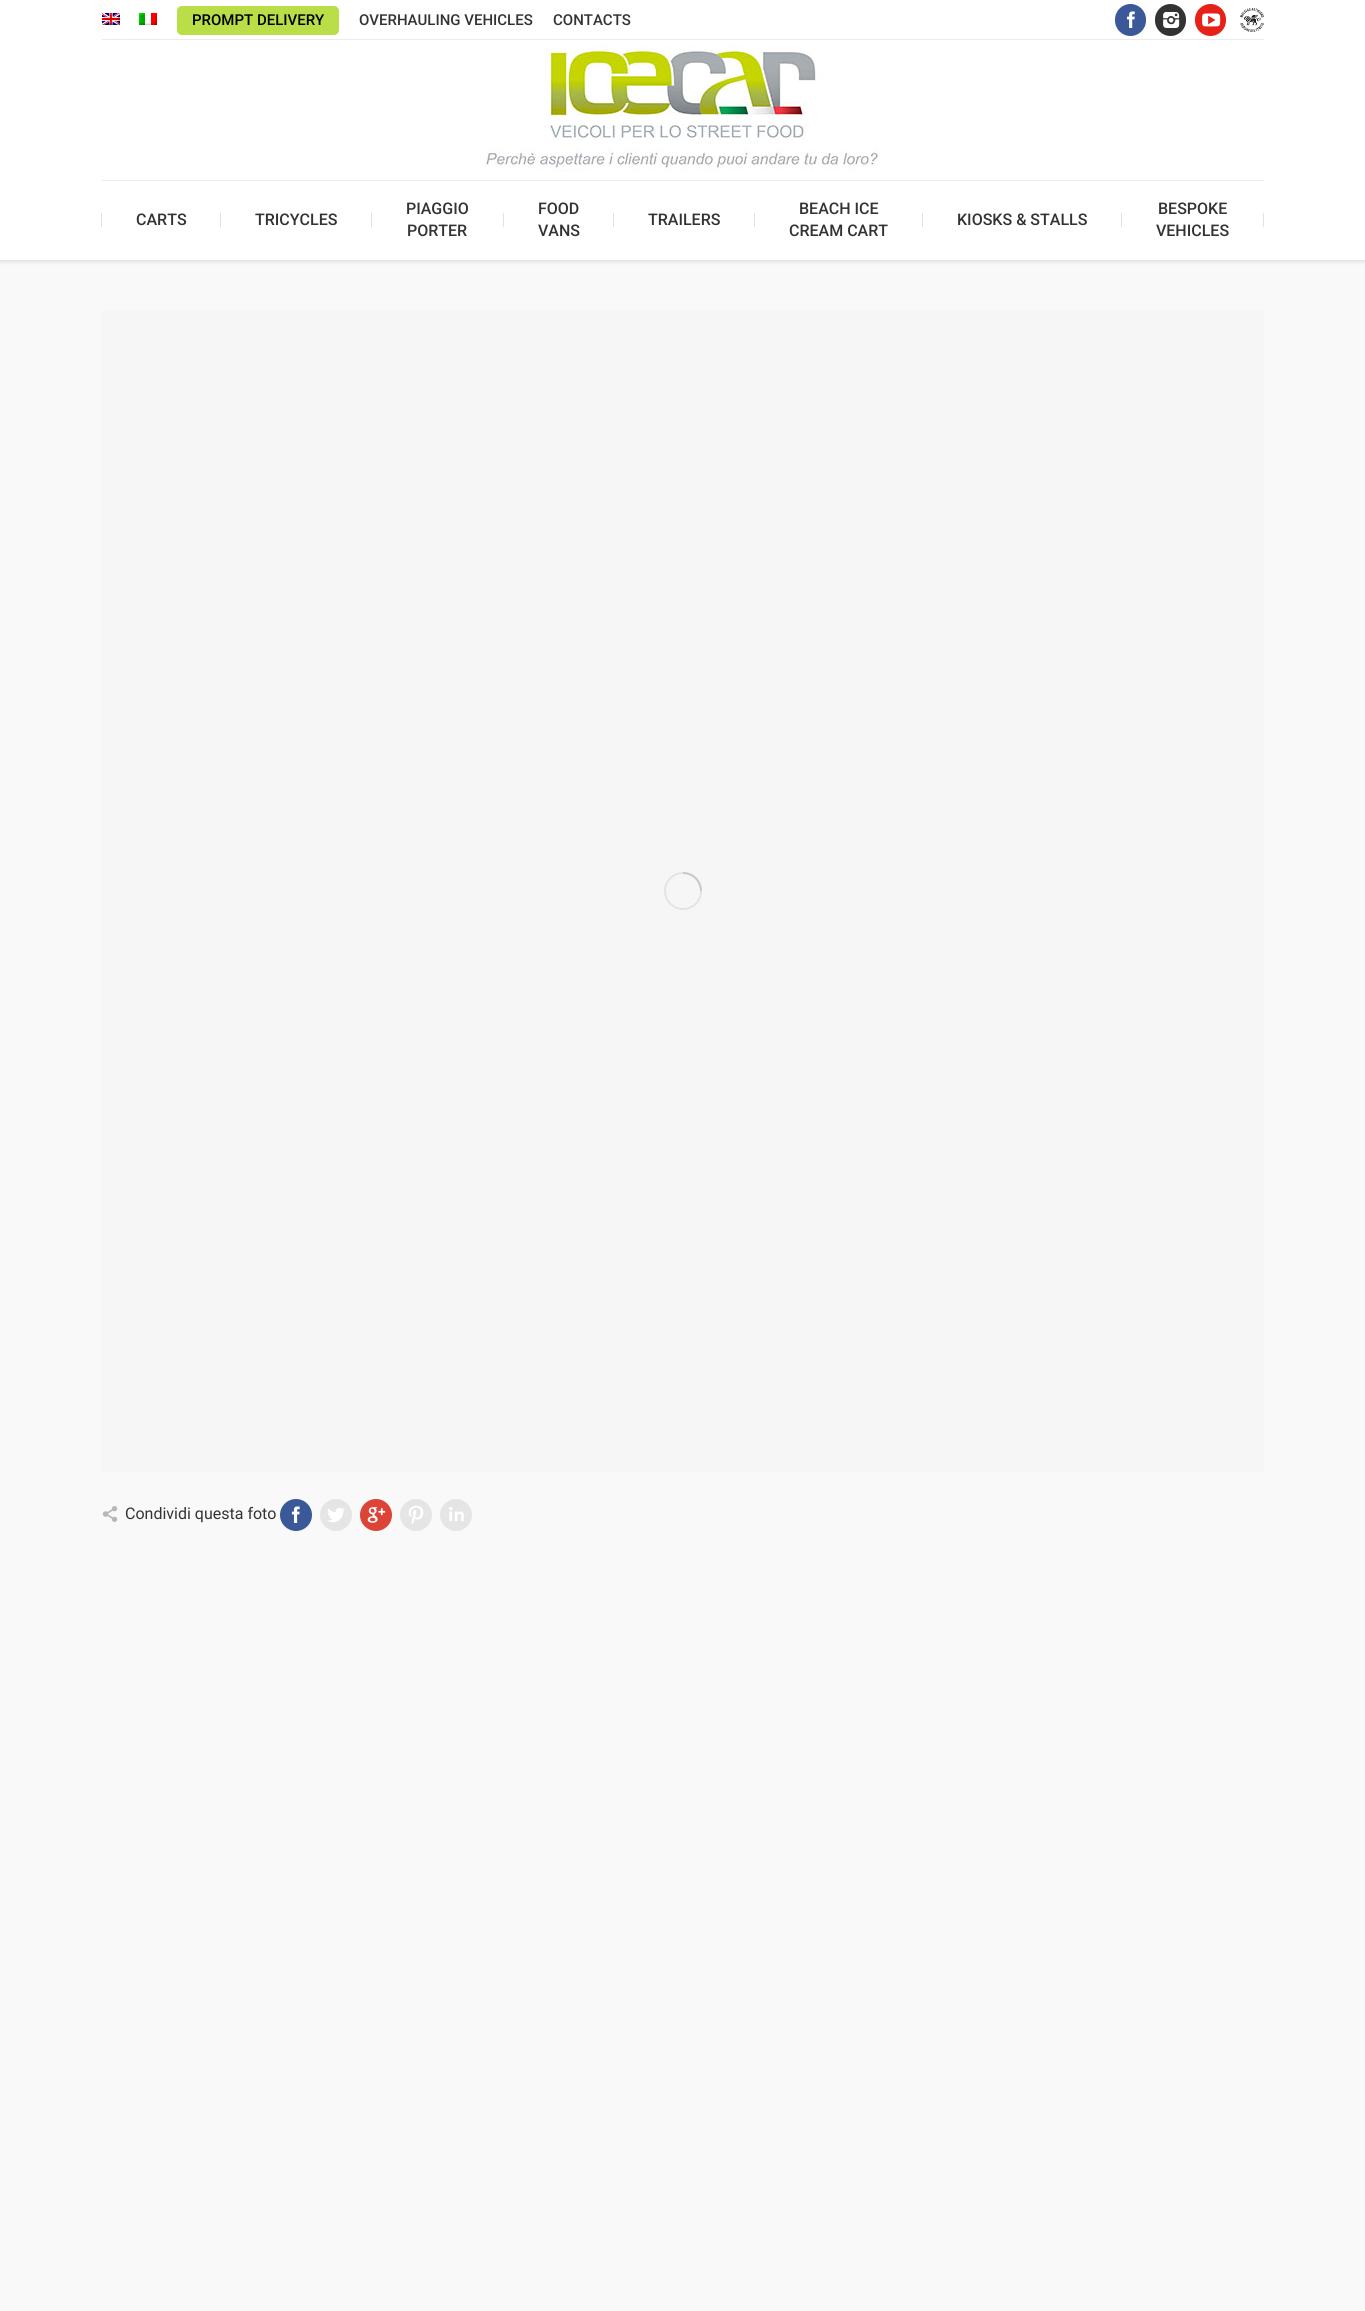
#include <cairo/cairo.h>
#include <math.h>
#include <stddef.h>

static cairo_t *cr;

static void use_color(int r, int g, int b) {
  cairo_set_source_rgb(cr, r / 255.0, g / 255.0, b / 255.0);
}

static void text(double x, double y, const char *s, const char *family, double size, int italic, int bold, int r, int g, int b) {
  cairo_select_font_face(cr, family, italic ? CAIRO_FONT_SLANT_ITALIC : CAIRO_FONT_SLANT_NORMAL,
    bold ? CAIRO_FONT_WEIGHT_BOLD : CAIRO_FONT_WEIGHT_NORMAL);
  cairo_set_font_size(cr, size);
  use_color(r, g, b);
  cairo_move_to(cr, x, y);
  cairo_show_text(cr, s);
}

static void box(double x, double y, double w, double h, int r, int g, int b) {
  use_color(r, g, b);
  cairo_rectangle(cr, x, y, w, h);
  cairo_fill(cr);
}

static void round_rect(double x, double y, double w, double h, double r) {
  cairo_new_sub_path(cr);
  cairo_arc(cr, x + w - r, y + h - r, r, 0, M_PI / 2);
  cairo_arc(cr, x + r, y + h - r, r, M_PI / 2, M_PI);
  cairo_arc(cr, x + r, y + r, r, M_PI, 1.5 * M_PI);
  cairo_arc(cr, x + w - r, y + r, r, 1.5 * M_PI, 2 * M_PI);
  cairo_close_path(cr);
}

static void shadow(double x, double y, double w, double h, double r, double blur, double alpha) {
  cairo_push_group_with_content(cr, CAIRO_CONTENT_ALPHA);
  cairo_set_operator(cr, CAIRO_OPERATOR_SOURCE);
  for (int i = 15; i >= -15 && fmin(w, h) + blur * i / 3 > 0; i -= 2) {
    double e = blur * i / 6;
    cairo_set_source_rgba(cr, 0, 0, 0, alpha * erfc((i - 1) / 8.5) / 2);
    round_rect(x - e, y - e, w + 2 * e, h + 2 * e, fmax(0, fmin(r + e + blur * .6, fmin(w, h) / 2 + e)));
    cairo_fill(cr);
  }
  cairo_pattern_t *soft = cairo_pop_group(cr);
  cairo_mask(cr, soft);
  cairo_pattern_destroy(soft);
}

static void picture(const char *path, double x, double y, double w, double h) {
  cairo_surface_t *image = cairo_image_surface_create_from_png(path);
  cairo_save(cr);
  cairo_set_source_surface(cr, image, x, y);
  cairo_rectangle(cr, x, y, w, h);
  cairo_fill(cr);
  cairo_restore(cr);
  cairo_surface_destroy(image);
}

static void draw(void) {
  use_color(249, 249, 249);
  cairo_paint(cr);
  use_color(0, 0, 0);
  shadow(0, 0, 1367, 262, 0, 2, 0.1);
  box(0, 0, 1365, 260, 255, 255, 255);
  picture("img_01.png", 102, 13, 18, 12);
  picture("img_02.png", 139, 13, 18, 12);
  use_color(185, 222, 71);
  round_rect(177, 6, 162, 29, 5);
  cairo_fill(cr);
  use_color(59, 89, 152);
  round_rect(1115, 4, 31, 32, 15.5);
  cairo_fill(cr);
  picture("img_03.png", 1127, 11, 8, 17);
  use_color(51, 51, 51);
  round_rect(1155, 4, 31, 32, 15.5);
  cairo_fill(cr);
  picture("img_04.png", 1163, 12, 17, 16);
  use_color(230, 33, 23);
  round_rect(1195, 4, 31, 32, 15.5);
  cairo_fill(cr);
  picture("img_05.png", 1202, 13, 19, 14);
  picture("img_06.png", 1240, 8, 24, 24);
  box(102, 39, 1162, 1, 235, 235, 235);
  picture("img_07.png", 479, 44, 400, 128);
  box(102, 180, 1162, 1, 235, 235, 235);
  box(101, 213, 1, 14, 226, 226, 226);
  box(220, 213, 1, 14, 226, 226, 226);
  box(371, 213, 1, 14, 226, 226, 226);
  box(503, 213, 1, 14, 226, 226, 226);
  box(613, 213, 1, 14, 226, 226, 226);
  box(754, 213, 1, 14, 226, 226, 226);
  box(922, 213, 1, 14, 226, 226, 226);
  box(1121, 213, 1, 14, 226, 226, 226);
  box(1263, 213, 1, 14, 226, 226, 226);
  box(102, 310, 1162, 1162, 246, 246, 246);
  cairo_arc(cr, 683, 891, 18, 0, 2 * M_PI);
  use_color(228, 228, 228);
  cairo_stroke(cr);
  cairo_new_path(cr);
  cairo_move_to(cr, 701, 891);
  cairo_curve_to(cr, 701, 881, 693, 873, 683, 873);
  cairo_set_source_rgba(cr, 0.459, 0.459, 0.459, 0.25);
  cairo_stroke(cr);
  picture("img_08.png", 102, 1506, 16, 16);
  use_color(59, 89, 152);
  cairo_arc(cr, 296, 1515, 16, 0, 2 * M_PI);
  cairo_fill(cr);
  picture("img_09.png", 291, 1506, 9, 17);
  use_color(229, 229, 229);
  cairo_arc(cr, 336, 1515, 16, 0, 2 * M_PI);
  cairo_fill(cr);
  picture("img_10.png", 327, 1507, 18, 16);
  use_color(219, 68, 55);
  cairo_arc(cr, 376, 1515, 16, 0, 2 * M_PI);
  cairo_fill(cr);
  picture("img_11.png", 367, 1507, 19, 16);
  use_color(229, 229, 229);
  cairo_arc(cr, 416, 1515, 16, 0, 2 * M_PI);
  cairo_fill(cr);
  picture("img_12.png", 408, 1505, 16, 20);
  cairo_arc(cr, 456, 1515, 16, 0, 2 * M_PI);
  cairo_fill(cr);
  picture("img_13.png", 449, 1507, 15, 14);
  text(192, 25, "PROMPT DELIVERY", "Roboto Medium", 15, 0, 0, 0, 0, 0);
  text(359, 25, "OVERHAULING VEHICLES", "Roboto Medium", 15, 0, 0, 51, 51, 51);
  text(553, 25, "CONTACTS", "Roboto Medium", 15, 0, 0, 51, 51, 51);
  text(136, 225, "CARTS", "Roboto Medium", 16, 0, 0, 51, 51, 51);
  text(255, 225, "TRICYCLES", "Roboto Medium", 16, 0, 0, 51, 51, 51);
  text(406, 214, "PIAGGIO", "Roboto Medium", 16, 0, 0, 51, 51, 51);
  text(407, 236, "PORTER", "Roboto Medium", 16, 0, 0, 51, 51, 51);
  text(538, 214, "FOOD", "Roboto Medium", 16, 0, 0, 51, 51, 51);
  text(538, 236, "VANS", "Roboto Medium", 16, 0, 0, 51, 51, 51);
  text(648, 225, "TRAILERS", "Roboto Medium", 16, 0, 0, 51, 51, 51);
  text(799, 214, "BEACH ICE", "Roboto Medium", 16, 0, 0, 51, 51, 51);
  text(789, 236, "CREAM CART", "Roboto Medium", 16, 0, 0, 51, 51, 51);
  text(957, 225, "KIOSKS & STALLS", "Roboto Medium", 16, 0, 0, 51, 51, 51);
  text(1158, 214, "BESPOKE", "Roboto Medium", 16, 0, 0, 51, 51, 51);
  text(1156, 236, "VEHICLES", "Roboto Medium", 16, 0, 0, 51, 51, 51);
  text(125, 1519, "Condividi questa foto", "Roboto", 16, 0, 0, 51, 51, 51);
}

int main(void) {
  cairo_surface_t *surface = cairo_image_surface_create(CAIRO_FORMAT_RGB24, 1365, 2311);
  cr = cairo_create(surface);
  cairo_font_options_t *options = cairo_font_options_create();
  cairo_font_options_set_hint_metrics(options, CAIRO_HINT_METRICS_OFF);
  cairo_font_options_set_hint_style(options, CAIRO_HINT_STYLE_NONE);
  cairo_set_font_options(cr, options);
  cairo_set_miter_limit(cr, 4);
  draw();
  cairo_surface_write_to_png(surface, "out.png");
  cairo_font_options_destroy(options);
  cairo_destroy(cr);
  cairo_surface_destroy(surface);
  return 0;
}
